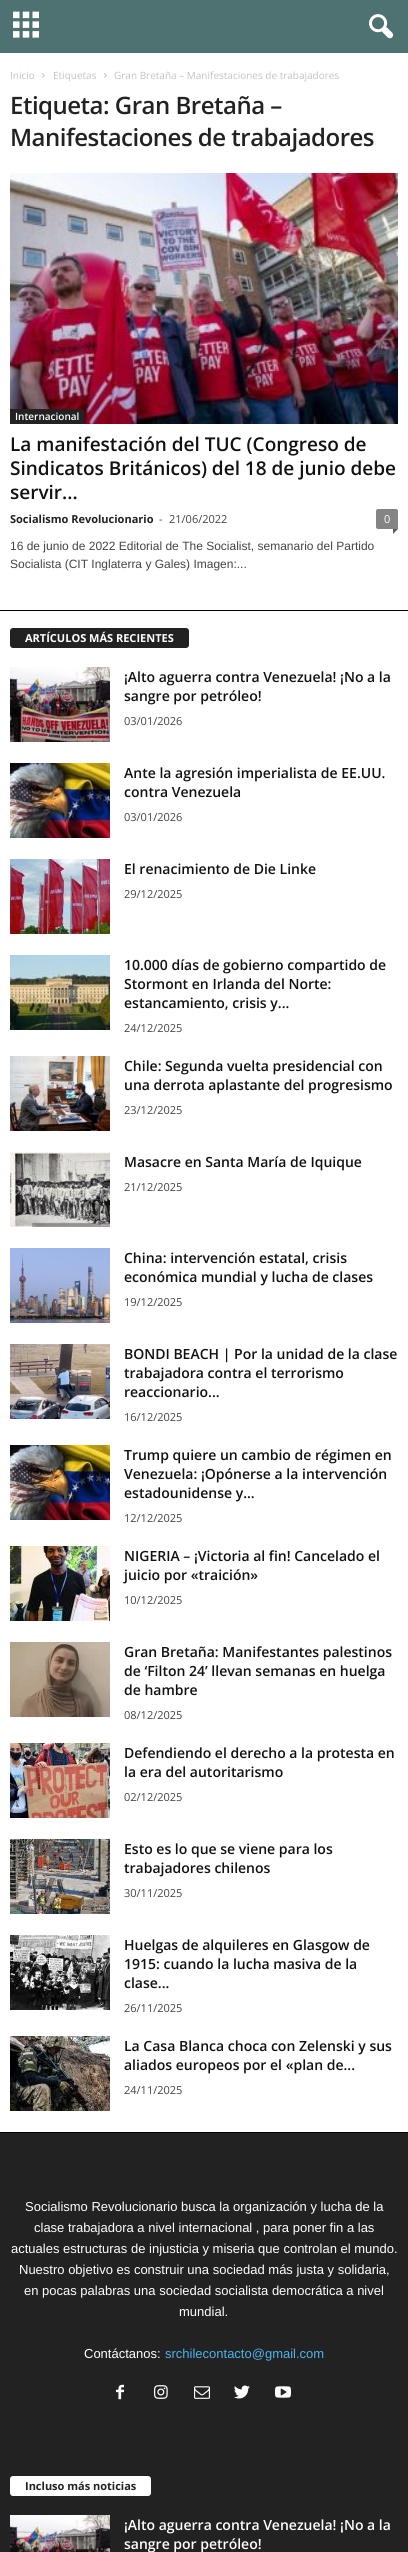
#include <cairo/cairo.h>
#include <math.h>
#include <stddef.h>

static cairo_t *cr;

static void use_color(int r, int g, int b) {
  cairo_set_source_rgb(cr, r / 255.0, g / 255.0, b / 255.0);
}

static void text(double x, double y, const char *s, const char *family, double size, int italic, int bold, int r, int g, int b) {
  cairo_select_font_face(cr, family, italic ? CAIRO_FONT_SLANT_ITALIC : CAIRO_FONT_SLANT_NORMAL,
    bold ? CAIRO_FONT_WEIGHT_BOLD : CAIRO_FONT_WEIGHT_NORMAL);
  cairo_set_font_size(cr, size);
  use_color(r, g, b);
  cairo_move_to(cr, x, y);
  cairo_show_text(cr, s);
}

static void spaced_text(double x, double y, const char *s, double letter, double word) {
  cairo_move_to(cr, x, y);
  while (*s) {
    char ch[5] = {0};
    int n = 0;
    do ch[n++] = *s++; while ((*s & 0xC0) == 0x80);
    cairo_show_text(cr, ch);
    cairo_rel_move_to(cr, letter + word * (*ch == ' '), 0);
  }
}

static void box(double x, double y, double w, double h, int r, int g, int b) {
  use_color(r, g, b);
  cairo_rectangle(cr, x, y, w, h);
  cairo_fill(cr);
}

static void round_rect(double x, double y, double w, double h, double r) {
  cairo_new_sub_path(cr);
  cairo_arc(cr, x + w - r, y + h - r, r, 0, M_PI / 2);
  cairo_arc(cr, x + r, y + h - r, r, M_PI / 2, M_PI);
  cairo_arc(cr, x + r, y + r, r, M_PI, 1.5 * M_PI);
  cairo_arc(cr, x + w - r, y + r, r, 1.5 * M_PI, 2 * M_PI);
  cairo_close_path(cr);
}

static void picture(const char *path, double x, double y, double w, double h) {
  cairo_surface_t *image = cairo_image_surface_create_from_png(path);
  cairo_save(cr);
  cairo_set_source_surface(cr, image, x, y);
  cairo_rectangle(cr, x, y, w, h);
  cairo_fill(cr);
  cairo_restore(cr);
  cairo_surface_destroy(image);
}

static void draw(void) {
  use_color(255, 255, 255);
  cairo_paint(cr);
  box(0, 0, 408, 53, 78, 114, 113);
  picture("img_01.png", 13, 11, 26, 27);
  picture("img_02.png", 369, 14, 25, 25);
  box(0, 2132, 408, 1, 0, 0, 0);
  picture("img_03.png", 42, 73, 3, 5);
  picture("img_03.png", 104, 73, 3, 5);
  picture("img_04.png", 10, 173, 388, 251);
  use_color(34, 34, 34);
  cairo_new_path(cr);
  cairo_move_to(cr, 10, 409);
  cairo_line_to(cr, 81, 409);
  cairo_curve_to(cr, 82.5, 409, 84, 410.5, 84, 412);
  cairo_line_to(cr, 84, 424);
  cairo_line_to(cr, 10, 424);
  cairo_close_path(cr);
  cairo_fill(cr);
  use_color(132, 132, 132);
  cairo_new_path(cr);
  cairo_move_to(cr, 378, 509);
  cairo_line_to(cr, 396, 509);
  cairo_curve_to(cr, 397, 509, 398, 510, 398, 511);
  cairo_line_to(cr, 398, 529);
  cairo_line_to(cr, 378, 529);
  cairo_curve_to(cr, 377, 529, 376, 528, 376, 527);
  cairo_line_to(cr, 376, 511);
  cairo_curve_to(cr, 376, 510, 377, 509, 378, 509);
  cairo_close_path(cr);
  cairo_fill(cr);
  use_color(91, 91, 91);
  cairo_new_path(cr);
  cairo_move_to(cr, 393, 529);
  cairo_line_to(cr, 398, 529);
  cairo_line_to(cr, 393, 534);
  cairo_close_path(cr);
  cairo_fill(cr);
  box(0, 610, 408, 1, 0, 0, 0);
  use_color(34, 34, 34);
  round_rect(10, 628, 179, 20, 3);
  cairo_fill(cr);
  picture("img_05.png", 10, 667, 100, 75);
  picture("img_06.png", 10, 763, 100, 75);
  picture("img_07.png", 10, 859, 100, 75);
  picture("img_08.png", 10, 955, 100, 75);
  picture("img_09.png", 10, 1056, 100, 75);
  picture("img_10.png", 10, 1152, 100, 75);
  picture("img_11.png", 10, 1248, 100, 75);
  picture("img_12.png", 10, 1344, 100, 75);
  picture("img_13.png", 10, 1445, 100, 75);
  picture("img_14.png", 10, 1546, 100, 75);
  picture("img_15.png", 10, 1642, 100, 75);
  picture("img_16.png", 10, 1743, 100, 75);
  picture("img_17.png", 10, 1839, 100, 75);
  picture("img_18.png", 10, 1935, 100, 75);
  picture("img_19.png", 10, 2036, 100, 75);
  box(0, 2133, 408, 419, 34, 34, 34);
  picture("img_20.png", 116, 2384, 8, 16);
  picture("img_21.png", 154, 2385, 14, 14);
  picture("img_22.png", 194, 2386, 16, 13);
  picture("img_23.png", 234, 2385, 16, 14);
  picture("img_24.png", 275, 2386, 16, 12);
  use_color(255, 255, 255);
  round_rect(10, 2476, 141, 20, 3);
  cairo_fill(cr);
  picture("img_25.png", 10, 2515, 100, 37);
  text(10, 79, "Inicio", "Open Sans", 10, 0, 0, 195, 195, 195);
  text(53, 79, "Etiquetas", "Open Sans", 10, 0, 0, 195, 195, 195);
  text(114, 79, "Gran Bretaña – Manifestaciones de trabajadores", "Open Sans", 10, 0, 0, 195, 195, 195);
  cairo_select_font_face(cr, "Open Sans SemiBold", CAIRO_FONT_SLANT_NORMAL, CAIRO_FONT_WEIGHT_NORMAL);
  cairo_set_font_size(cr, 24);
  use_color(34, 34, 34);
  spaced_text(10, 114, "Etiqueta: Gran Bretaña –", -0.5, 0);
  spaced_text(10, 146, "Manifestaciones de trabajadores", -0.5, 0);
  text(15, 420, "Internacional", "Open Sans SemiBold", 10, 0, 0, 255, 255, 255);
  text(10, 451, "La manifestación del TUC (Congreso de", "Open Sans SemiBold", 19, 0, 0, 17, 17, 17);
  text(10, 475, "Sindicatos Británicos) del 18 de junio debe", "Open Sans SemiBold", 19, 0, 0, 17, 17, 17);
  text(10, 499, "servir...", "Open Sans SemiBold", 19, 0, 0, 17, 17, 17);
  text(10, 523, "Socialismo Revolucionario", "Open Sans", 11, 0, 1, 34, 34, 34);
  text(159, 523, "-", "Open Sans", 11, 0, 0, 68, 68, 68);
  text(169, 523, "21/06/2022", "Open Sans", 11, 0, 0, 68, 68, 68);
  text(384, 523, "0", "Open Sans", 11, 0, 0, 255, 255, 255);
  text(10, 550, "16 de junio de 2022 Editorial de The Socialist, semanario del Partido", "Liberation Sans", 12, 0, 0, 68, 68, 68);
  text(10, 568, "Socialista (CIT Inglaterra y Gales) Imagen:...", "Liberation Sans", 12, 0, 0, 68, 68, 68);
  text(25, 642, "ARTÍCULOS MÁS RECIENTES", "Open Sans", 11, 0, 1, 255, 255, 255);
  text(124, 682, "¡Alto aguerra contra Venezuela! ¡No a la", "Open Sans SemiBold", 14, 0, 0, 17, 17, 17);
  text(124, 701, "sangre por petróleo!", "Open Sans SemiBold", 14, 0, 0, 17, 17, 17);
  text(124, 725, "03/01/2026", "Open Sans", 11, 0, 0, 68, 68, 68);
  text(124, 778, "Ante la agresión imperialista de EE.UU.", "Open Sans SemiBold", 14, 0, 0, 17, 17, 17);
  text(124, 797, "contra Venezuela", "Open Sans SemiBold", 14, 0, 0, 17, 17, 17);
  text(124, 821, "03/01/2026", "Open Sans", 11, 0, 0, 68, 68, 68);
  text(124, 874, "El renacimiento de Die Linke", "Open Sans SemiBold", 14, 0, 0, 17, 17, 17);
  text(124, 898, "29/12/2025", "Open Sans", 11, 0, 0, 68, 68, 68);
  text(124, 970, "10.000 días de gobierno compartido de", "Open Sans SemiBold", 14, 0, 0, 17, 17, 17);
  text(124, 989, "Stormont en Irlanda del Norte:", "Open Sans SemiBold", 14, 0, 0, 17, 17, 17);
  text(124, 1008, "estancamiento, crisis y...", "Open Sans SemiBold", 14, 0, 0, 17, 17, 17);
  text(124, 1032, "24/12/2025", "Open Sans", 11, 0, 0, 68, 68, 68);
  text(124, 1071, "Chile: Segunda vuelta presidencial con", "Open Sans SemiBold", 14, 0, 0, 17, 17, 17);
  text(124, 1090, "una derrota aplastante del progresismo", "Open Sans SemiBold", 14, 0, 0, 17, 17, 17);
  text(124, 1114, "23/12/2025", "Open Sans", 11, 0, 0, 68, 68, 68);
  text(124, 1167, "Masacre en Santa María de Iquique", "Open Sans SemiBold", 14, 0, 0, 17, 17, 17);
  text(124, 1191, "21/12/2025", "Open Sans", 11, 0, 0, 68, 68, 68);
  text(124, 1263, "China: intervención estatal, crisis", "Open Sans SemiBold", 14, 0, 0, 17, 17, 17);
  text(124, 1282, "económica mundial y lucha de clases", "Open Sans SemiBold", 14, 0, 0, 17, 17, 17);
  text(124, 1306, "19/12/2025", "Open Sans", 11, 0, 0, 68, 68, 68);
  text(124, 1359, "BONDI BEACH | Por la unidad de la clase", "Open Sans SemiBold", 14, 0, 0, 17, 17, 17);
  text(124, 1378, "trabajadora contra el terrorismo", "Open Sans SemiBold", 14, 0, 0, 17, 17, 17);
  text(124, 1397, "reaccionario...", "Open Sans SemiBold", 14, 0, 0, 17, 17, 17);
  text(124, 1421, "16/12/2025", "Open Sans", 11, 0, 0, 68, 68, 68);
  text(124, 1460, "Trump quiere un cambio de régimen en", "Open Sans SemiBold", 14, 0, 0, 17, 17, 17);
  text(124, 1479, "Venezuela: ¡Opónerse a la intervención", "Open Sans SemiBold", 14, 0, 0, 17, 17, 17);
  text(124, 1498, "estadounidense y...", "Open Sans SemiBold", 14, 0, 0, 17, 17, 17);
  text(124, 1522, "12/12/2025", "Open Sans", 11, 0, 0, 68, 68, 68);
  text(124, 1561, "NIGERIA – ¡Victoria al fin! Cancelado el", "Open Sans SemiBold", 14, 0, 0, 17, 17, 17);
  text(124, 1580, "juicio por «traición»", "Open Sans SemiBold", 14, 0, 0, 17, 17, 17);
  text(124, 1604, "10/12/2025", "Open Sans", 11, 0, 0, 68, 68, 68);
  text(124, 1657, "Gran Bretaña: Manifestantes palestinos", "Open Sans SemiBold", 14, 0, 0, 17, 17, 17);
  text(124, 1676, "de ‘Filton 24’ llevan semanas en huelga", "Open Sans SemiBold", 14, 0, 0, 17, 17, 17);
  text(124, 1695, "de hambre", "Open Sans SemiBold", 14, 0, 0, 17, 17, 17);
  text(124, 1719, "08/12/2025", "Open Sans", 11, 0, 0, 68, 68, 68);
  text(124, 1758, "Defendiendo el derecho a la protesta en", "Open Sans SemiBold", 14, 0, 0, 17, 17, 17);
  text(124, 1777, "la era del autoritarismo", "Open Sans SemiBold", 14, 0, 0, 17, 17, 17);
  text(124, 1801, "02/12/2025", "Open Sans", 11, 0, 0, 68, 68, 68);
  text(124, 1854, "Esto es lo que se viene para los", "Open Sans SemiBold", 14, 0, 0, 17, 17, 17);
  text(124, 1873, "trabajadores chilenos", "Open Sans SemiBold", 14, 0, 0, 17, 17, 17);
  text(124, 1897, "30/11/2025", "Open Sans", 11, 0, 0, 68, 68, 68);
  text(124, 1950, "Huelgas de alquileres en Glasgow de", "Open Sans SemiBold", 14, 0, 0, 17, 17, 17);
  text(124, 1969, "1915: cuando la lucha masiva de la", "Open Sans SemiBold", 14, 0, 0, 17, 17, 17);
  text(124, 1988, "clase...", "Open Sans SemiBold", 14, 0, 0, 17, 17, 17);
  text(124, 2012, "26/11/2025", "Open Sans", 11, 0, 0, 68, 68, 68);
  text(124, 2051, "La Casa Blanca choca con Zelenski y sus", "Open Sans SemiBold", 14, 0, 0, 17, 17, 17);
  text(124, 2070, "aliados europeos por el «plan de...", "Open Sans SemiBold", 14, 0, 0, 17, 17, 17);
  text(124, 2094, "24/11/2025", "Open Sans", 11, 0, 0, 68, 68, 68);
  text(25, 2211, "Socialismo Revolucionario busca la organización y lucha de la", "Liberation Sans", 13, 0, 0, 255, 255, 255);
  text(34, 2232, "clase trabajadora a nivel internacional , para poner fin a las", "Liberation Sans", 13, 0, 0, 255, 255, 255);
  text(11, 2253, "actuales estructuras de injusticia y miseria que controlan el mundo.", "Liberation Sans", 13, 0, 0, 255, 255, 255);
  text(19, 2274, "Nuestro objetivo es construir una sociedad más justa y solidaria,", "Liberation Sans", 13, 0, 0, 255, 255, 255);
  text(24, 2295, "en pocas palabras una sociedad socialista democrática a nivel", "Liberation Sans", 13, 0, 0, 255, 255, 255);
  text(179, 2316, "mundial.", "Liberation Sans", 13, 0, 0, 255, 255, 255);
  text(84, 2358, "Contáctanos:", "Liberation Sans", 13, 0, 0, 255, 255, 255);
  text(165, 2358, "srchilecontacto@gmail.com", "Liberation Sans", 13, 0, 0, 77, 178, 236);
  text(25, 2490, "Incluso más noticias", "Open Sans", 11, 0, 1, 34, 34, 34);
  text(124, 2530, "¡Alto aguerra contra Venezuela! ¡No a la", "Open Sans SemiBold", 14, 0, 0, 255, 255, 255);
  text(124, 2549, "sangre por petróleo!", "Open Sans SemiBold", 14, 0, 0, 255, 255, 255);
}

int main(void) {
  cairo_surface_t *surface = cairo_image_surface_create(CAIRO_FORMAT_RGB24, 408, 2552);
  cr = cairo_create(surface);
  cairo_font_options_t *options = cairo_font_options_create();
  cairo_font_options_set_hint_metrics(options, CAIRO_HINT_METRICS_OFF);
  cairo_font_options_set_hint_style(options, CAIRO_HINT_STYLE_NONE);
  cairo_set_font_options(cr, options);
  cairo_set_miter_limit(cr, 4);
  draw();
  cairo_surface_write_to_png(surface, "out.png");
  cairo_font_options_destroy(options);
  cairo_destroy(cr);
  cairo_surface_destroy(surface);
  return 0;
}
